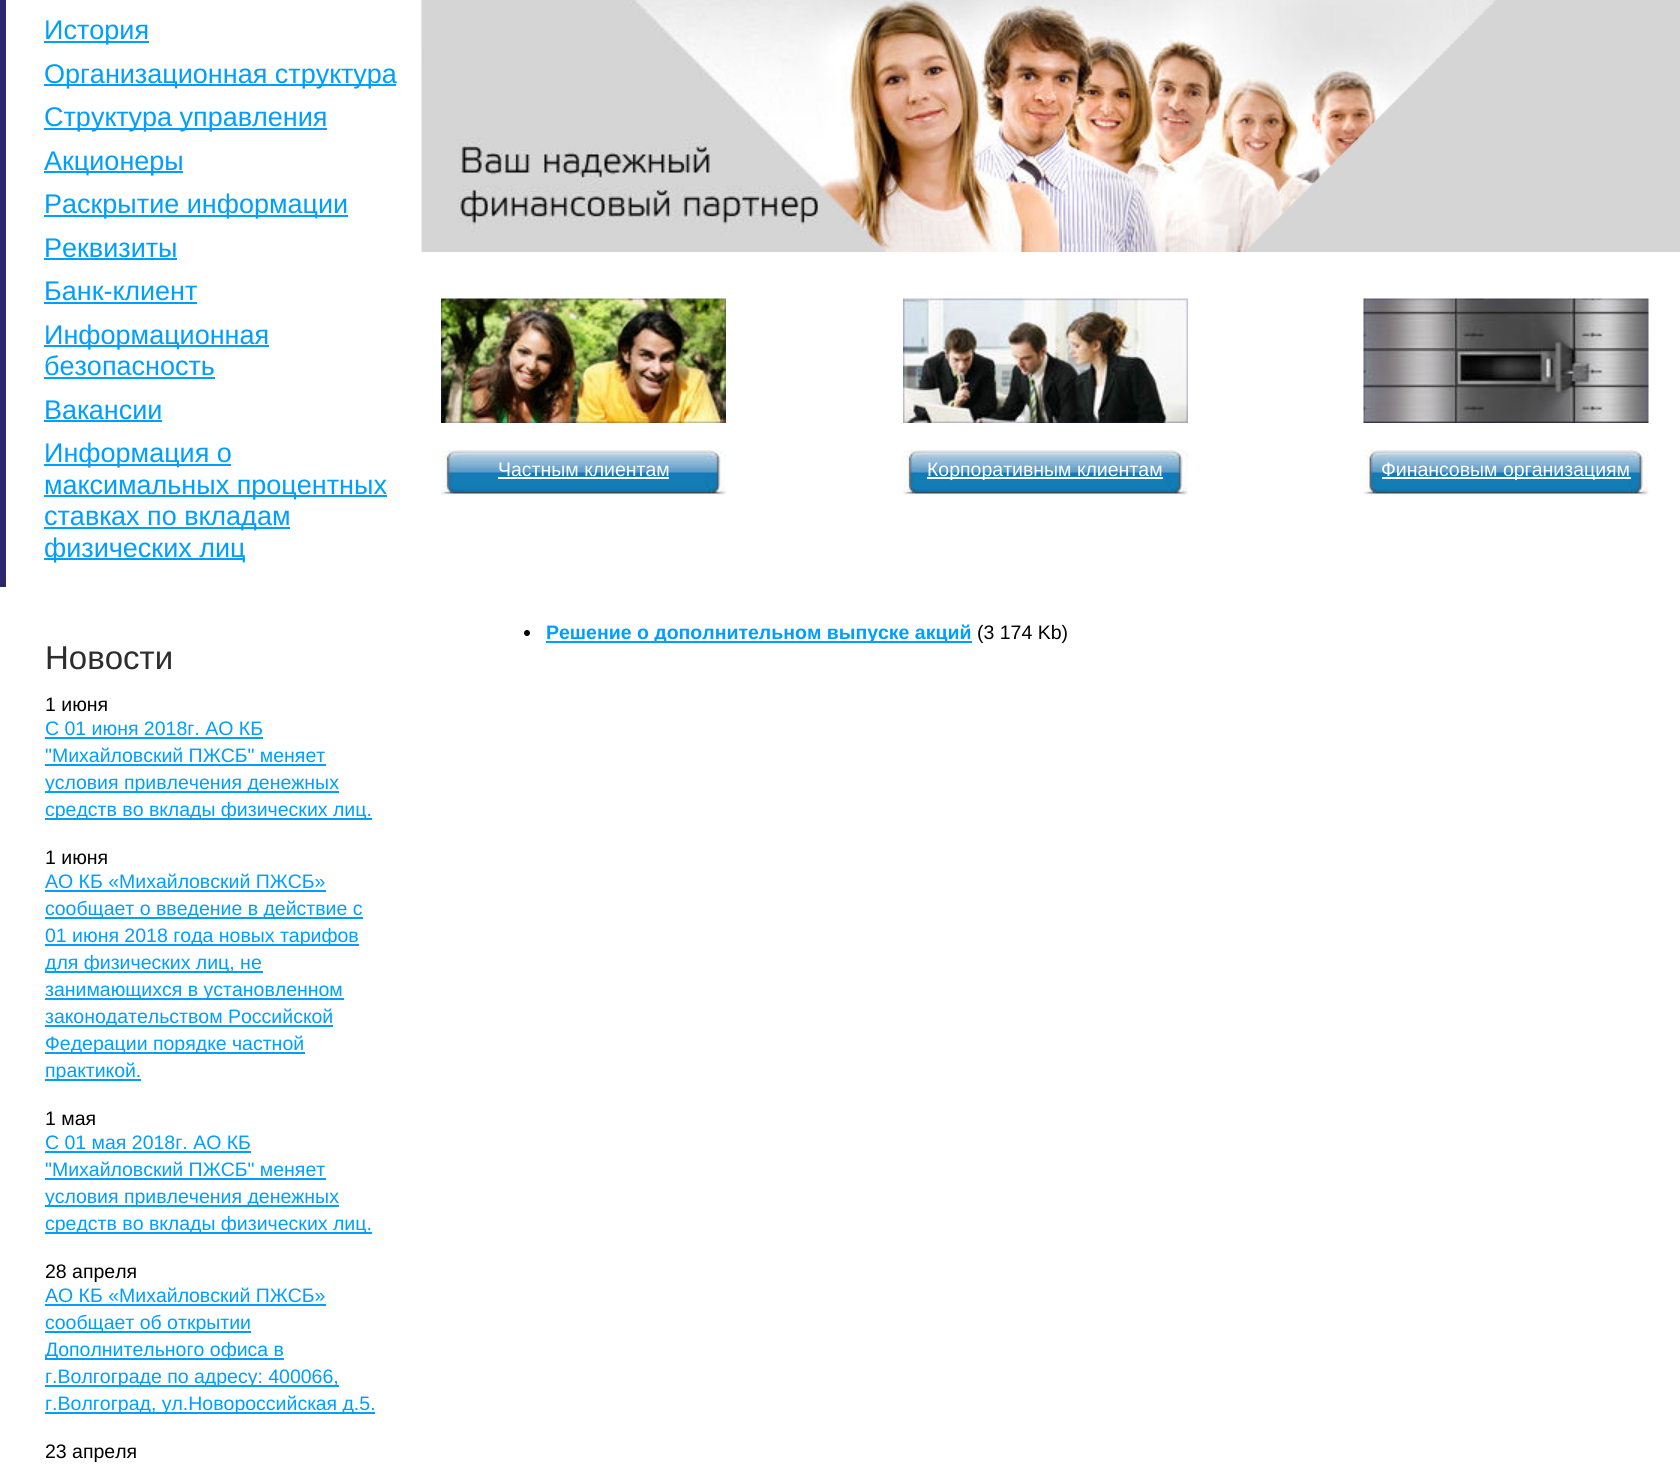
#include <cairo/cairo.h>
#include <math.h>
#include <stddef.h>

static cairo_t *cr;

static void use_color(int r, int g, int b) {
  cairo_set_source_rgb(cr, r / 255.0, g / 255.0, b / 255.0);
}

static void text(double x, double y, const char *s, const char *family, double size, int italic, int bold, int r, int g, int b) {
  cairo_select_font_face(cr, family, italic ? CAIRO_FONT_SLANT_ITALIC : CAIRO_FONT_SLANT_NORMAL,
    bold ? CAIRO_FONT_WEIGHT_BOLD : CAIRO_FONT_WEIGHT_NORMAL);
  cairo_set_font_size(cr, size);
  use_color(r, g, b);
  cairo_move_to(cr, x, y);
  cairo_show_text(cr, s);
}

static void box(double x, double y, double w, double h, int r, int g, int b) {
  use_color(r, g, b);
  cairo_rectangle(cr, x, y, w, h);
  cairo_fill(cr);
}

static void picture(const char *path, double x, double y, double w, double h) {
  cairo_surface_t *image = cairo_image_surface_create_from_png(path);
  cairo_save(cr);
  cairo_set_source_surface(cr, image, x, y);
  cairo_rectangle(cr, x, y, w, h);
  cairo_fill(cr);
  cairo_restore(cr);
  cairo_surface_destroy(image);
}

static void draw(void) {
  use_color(255, 255, 255);
  cairo_paint(cr);
  box(0, 0, 6, 587, 43, 39, 109);
  box(44, 41, 105, 2, 0, 158, 255);
  box(44, 84, 352, 2, 0, 158, 255);
  box(44, 128, 283, 2, 0, 158, 255);
  box(44, 171, 139, 2, 0, 158, 255);
  box(44, 215, 304, 2, 0, 158, 255);
  box(44, 258, 133, 2, 0, 158, 255);
  box(44, 302, 153, 2, 0, 158, 255);
  box(44, 345, 225, 2, 0, 158, 255);
  box(44, 377, 171, 2, 0, 158, 255);
  box(44, 420, 118, 2, 0, 158, 255);
  box(44, 464, 187, 2, 0, 158, 255);
  box(44, 495, 343, 2, 0, 158, 255);
  box(44, 527, 246, 2, 0, 158, 255);
  box(44, 558, 201, 2, 0, 158, 255);
  box(45, 737, 218, 2, 0, 158, 255);
  box(45, 764, 281, 2, 0, 158, 255);
  box(45, 791, 294, 2, 0, 158, 255);
  box(45, 818, 327, 2, 0, 158, 255);
  box(45, 890, 281, 2, 0, 158, 255);
  box(45, 917, 318, 2, 0, 158, 255);
  box(45, 944, 314, 2, 0, 158, 255);
  box(45, 971, 218, 2, 0, 158, 255);
  box(45, 998, 299, 2, 0, 158, 255);
  box(45, 1025, 288, 2, 0, 158, 255);
  box(45, 1052, 260, 2, 0, 158, 255);
  box(45, 1079, 96, 2, 0, 158, 255);
  box(45, 1151, 206, 2, 0, 158, 255);
  box(45, 1178, 281, 2, 0, 158, 255);
  box(45, 1205, 294, 2, 0, 158, 255);
  box(45, 1232, 327, 2, 0, 158, 255);
  box(45, 1304, 281, 2, 0, 158, 255);
  box(45, 1331, 206, 2, 0, 158, 255);
  box(45, 1358, 239, 2, 0, 158, 255);
  box(45, 1385, 294, 2, 0, 158, 255);
  box(45, 1412, 330, 2, 0, 158, 255);
  picture("img_01.png", 421, 0, 1075, 127);
  picture("img_02.png", 421, 0, 1031, 252);
  picture("img_03.png", 1245, 0, 435, 252);
  picture("img_04.png", 441, 298, 285, 125);
  picture("img_05.png", 441, 450, 285, 45);
  box(498, 477, 171, 2, 255, 255, 255);
  picture("img_06.png", 903, 298, 285, 125);
  picture("img_07.png", 903, 450, 285, 45);
  box(927, 477, 236, 2, 255, 255, 255);
  picture("img_08.png", 1363, 298, 286, 125);
  picture("img_09.png", 1363, 450, 286, 45);
  box(1382, 477, 249, 2, 255, 255, 255);
  use_color(0, 0, 0);
  cairo_arc(cr, 527, 633, 3, 0, 2 * M_PI);
  cairo_fill(cr);
  box(546, 641, 426, 2, 0, 158, 255);
  text(44, 39, "История", "Liberation Sans", 27, 0, 0, 0, 158, 255);
  text(44, 83, "Организационная структура", "Liberation Sans", 27, 0, 0, 0, 158, 255);
  text(44, 126, "Структура управления", "Liberation Sans", 27, 0, 0, 0, 158, 255);
  text(44, 170, "Акционеры", "Liberation Sans", 27, 0, 0, 0, 158, 255);
  text(44, 213, "Раскрытие информации", "Liberation Sans", 27, 0, 0, 0, 158, 255);
  text(44, 257, "Реквизиты", "Liberation Sans", 27, 0, 0, 0, 158, 255);
  text(44, 300, "Банк-клиент", "Liberation Sans", 27, 0, 0, 0, 158, 255);
  text(44, 344, "Информационная", "Liberation Sans", 27, 0, 0, 0, 158, 255);
  text(44, 375, "безопасность", "Liberation Sans", 27, 0, 0, 0, 158, 255);
  text(44, 419, "Вакансии", "Liberation Sans", 27, 0, 0, 0, 158, 255);
  text(44, 462, "Информация о", "Liberation Sans", 27, 0, 0, 0, 158, 255);
  text(44, 494, "максимальных процентных", "Liberation Sans", 27, 0, 0, 0, 158, 255);
  text(44, 525, "ставках по вкладам", "Liberation Sans", 27, 0, 0, 0, 158, 255);
  text(44, 557, "физических лиц", "Liberation Sans", 27, 0, 0, 0, 158, 255);
  text(45, 669, "Новости", "Liberation Sans", 33, 0, 0, 45, 45, 45);
  text(45, 711, "1 июня", "Liberation Sans", 19.5, 0, 0, 0, 0, 0);
  text(45, 735, "С 01 июня 2018г. АО КБ", "Liberation Sans", 19.5, 0, 0, 0, 158, 255);
  text(45, 762, "\"Михайловский ПЖСБ\" меняет", "Liberation Sans", 19.5, 0, 0, 0, 158, 255);
  text(45, 789, "условия привлечения денежных", "Liberation Sans", 19.5, 0, 0, 0, 158, 255);
  text(45, 816, "средств во вклады физических лиц.", "Liberation Sans", 19.5, 0, 0, 0, 158, 255);
  text(45, 864, "1 июня", "Liberation Sans", 19.5, 0, 0, 0, 0, 0);
  text(45, 888, "АО КБ «Михайловский ПЖСБ»", "Liberation Sans", 19.5, 0, 0, 0, 158, 255);
  text(45, 915, "сообщает о введение в действие с", "Liberation Sans", 19.5, 0, 0, 0, 158, 255);
  text(45, 942, "01 июня 2018 года новых тарифов", "Liberation Sans", 19.5, 0, 0, 0, 158, 255);
  text(45, 969, "для физических лиц, не", "Liberation Sans", 19.5, 0, 0, 0, 158, 255);
  text(45, 996, "занимающихся в установленном", "Liberation Sans", 19.5, 0, 0, 0, 158, 255);
  text(45, 1023, "законодательством Российской", "Liberation Sans", 19.5, 0, 0, 0, 158, 255);
  text(45, 1050, "Федерации порядке частной", "Liberation Sans", 19.5, 0, 0, 0, 158, 255);
  text(45, 1077, "практикой.", "Liberation Sans", 19.5, 0, 0, 0, 158, 255);
  text(45, 1125, "1 мая", "Liberation Sans", 19.5, 0, 0, 0, 0, 0);
  text(45, 1149, "С 01 мая 2018г. АО КБ", "Liberation Sans", 19.5, 0, 0, 0, 158, 255);
  text(45, 1176, "\"Михайловский ПЖСБ\" меняет", "Liberation Sans", 19.5, 0, 0, 0, 158, 255);
  text(45, 1203, "условия привлечения денежных", "Liberation Sans", 19.5, 0, 0, 0, 158, 255);
  text(45, 1230, "средств во вклады физических лиц.", "Liberation Sans", 19.5, 0, 0, 0, 158, 255);
  text(45, 1278, "28 апреля", "Liberation Sans", 19.5, 0, 0, 0, 0, 0);
  text(45, 1302, "АО КБ «Михайловский ПЖСБ»", "Liberation Sans", 19.5, 0, 0, 0, 158, 255);
  text(45, 1329, "сообщает об открытии", "Liberation Sans", 19.5, 0, 0, 0, 158, 255);
  text(45, 1356, "Дополнительного офиса в", "Liberation Sans", 19.5, 0, 0, 0, 158, 255);
  text(45, 1383, "г.Волгограде по адресу: 400066,", "Liberation Sans", 19.5, 0, 0, 0, 158, 255);
  text(45, 1410, "г.Волгоград, ул.Новороссийская д.5.", "Liberation Sans", 19.5, 0, 0, 0, 158, 255);
  text(45, 1458, "23 апреля", "Liberation Sans", 19.5, 0, 0, 0, 0, 0);
  text(498, 476, "Частным клиентам", "Liberation Sans", 19.5, 0, 0, 255, 255, 255);
  text(927, 476, "Корпоративным клиентам", "Liberation Sans", 19.5, 0, 0, 255, 255, 255);
  text(1381, 476, "Финансовым организациям", "Liberation Sans", 19.5, 0, 0, 255, 255, 255);
  text(546, 639, "Решение о дополнительном выпуске акций", "Liberation Sans", 19.5, 0, 1, 0, 158, 255);
  text(977, 639, "(3 174 Kb)", "Liberation Sans", 19.5, 0, 0, 0, 0, 0);
}

int main(void) {
  cairo_surface_t *surface = cairo_image_surface_create(CAIRO_FORMAT_RGB24, 1680, 1468);
  cr = cairo_create(surface);
  cairo_font_options_t *options = cairo_font_options_create();
  cairo_font_options_set_hint_metrics(options, CAIRO_HINT_METRICS_OFF);
  cairo_font_options_set_hint_style(options, CAIRO_HINT_STYLE_NONE);
  cairo_set_font_options(cr, options);
  cairo_set_miter_limit(cr, 4);
  draw();
  cairo_surface_write_to_png(surface, "out.png");
  cairo_font_options_destroy(options);
  cairo_destroy(cr);
  cairo_surface_destroy(surface);
  return 0;
}
